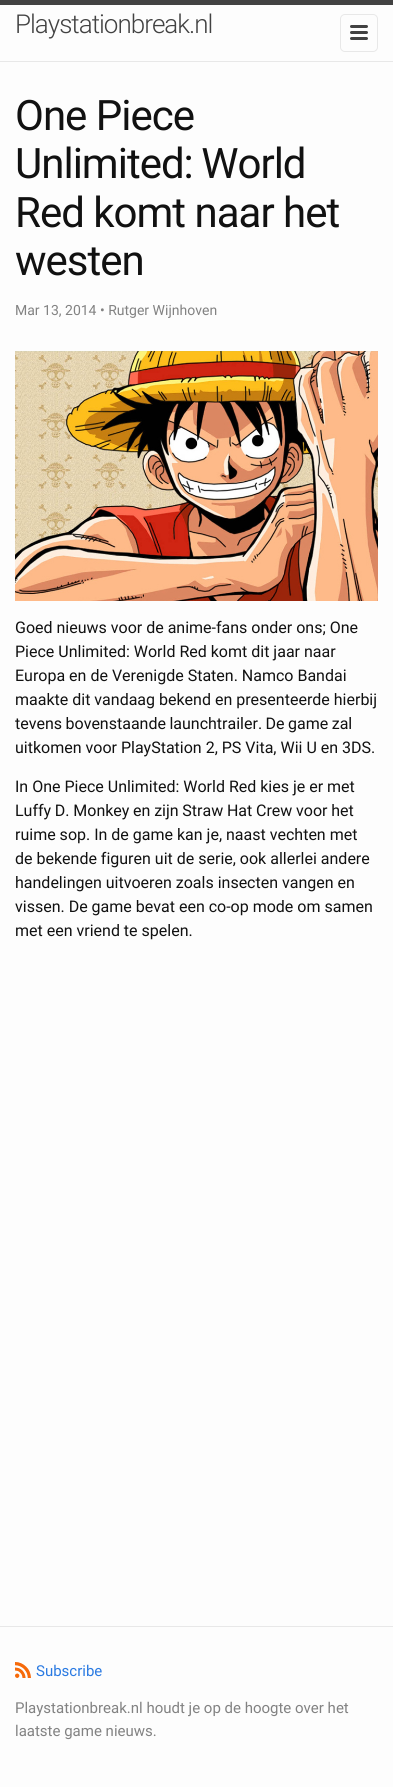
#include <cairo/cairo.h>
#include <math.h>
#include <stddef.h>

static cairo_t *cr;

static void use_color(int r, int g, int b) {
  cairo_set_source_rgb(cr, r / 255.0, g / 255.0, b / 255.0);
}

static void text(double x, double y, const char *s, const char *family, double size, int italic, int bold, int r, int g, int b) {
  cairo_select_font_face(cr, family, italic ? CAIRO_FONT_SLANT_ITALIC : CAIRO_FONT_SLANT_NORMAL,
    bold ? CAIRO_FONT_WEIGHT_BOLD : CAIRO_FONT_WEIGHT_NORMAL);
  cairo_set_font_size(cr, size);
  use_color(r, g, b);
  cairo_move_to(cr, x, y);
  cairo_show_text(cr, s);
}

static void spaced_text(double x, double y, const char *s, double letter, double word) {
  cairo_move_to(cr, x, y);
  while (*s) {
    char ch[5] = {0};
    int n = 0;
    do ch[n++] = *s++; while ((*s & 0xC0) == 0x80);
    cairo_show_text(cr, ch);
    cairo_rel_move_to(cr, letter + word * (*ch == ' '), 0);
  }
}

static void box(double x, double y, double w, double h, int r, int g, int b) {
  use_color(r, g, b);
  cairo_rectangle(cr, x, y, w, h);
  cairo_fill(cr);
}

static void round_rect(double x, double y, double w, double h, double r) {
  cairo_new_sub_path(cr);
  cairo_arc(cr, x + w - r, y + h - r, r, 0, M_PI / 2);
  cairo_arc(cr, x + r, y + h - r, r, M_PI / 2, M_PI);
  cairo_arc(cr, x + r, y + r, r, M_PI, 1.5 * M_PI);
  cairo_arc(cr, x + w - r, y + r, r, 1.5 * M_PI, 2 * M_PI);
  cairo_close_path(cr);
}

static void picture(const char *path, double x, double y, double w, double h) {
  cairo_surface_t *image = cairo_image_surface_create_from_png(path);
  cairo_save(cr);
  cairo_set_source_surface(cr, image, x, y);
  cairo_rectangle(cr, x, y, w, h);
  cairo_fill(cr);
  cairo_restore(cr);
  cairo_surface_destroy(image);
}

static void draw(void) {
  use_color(253, 253, 253);
  cairo_paint(cr);
  box(0, 0, 393, 5, 66, 66, 66);
  box(0, 61, 393, 1, 232, 232, 232);
  round_rect(340.5, 14.5, 37, 37, 4.5);
  cairo_set_line_width(cr, 1);
  cairo_stroke(cr);
  picture("img_01.png", 350, 25, 18, 15);
  picture("img_02.png", 15, 351, 363, 250);
  box(0, 1626, 393, 1, 232, 232, 232);
  picture("img_03.png", 15, 1662, 16, 16);
  cairo_select_font_face(cr, "Roboto Light", CAIRO_FONT_SLANT_NORMAL, CAIRO_FONT_WEIGHT_NORMAL);
  cairo_set_font_size(cr, 26);
  use_color(66, 66, 66);
  spaced_text(15, 33, "Playstationbreak.nl", -1, 0);
  cairo_select_font_face(cr, "Roboto", CAIRO_FONT_SLANT_NORMAL, CAIRO_FONT_WEIGHT_NORMAL);
  cairo_set_font_size(cr, 42);
  use_color(17, 17, 17);
  spaced_text(15, 130, "One Piece", -1, 0);
  spaced_text(15, 178, "Unlimited: World", -1, -1);
  spaced_text(15, 227, "Red komt naar het", -1, 0);
  spaced_text(15, 275, "westen", -1, 0);
  text(15, 315, "Mar 13, 2014 • Rutger Wijnhoven", "Roboto", 14, 0, 0, 130, 130, 130);
  text(15, 633, "Goed nieuws voor de anime-fans onder ons; One", "Roboto", 16, 0, 0, 17, 17, 17);
  text(15, 657, "Piece Unlimited: World Red komt dit jaar naar", "Roboto", 16, 0, 0, 17, 17, 17);
  text(15, 681, "Europa en de Verenigde Staten. Namco Bandai", "Roboto", 16, 0, 0, 17, 17, 17);
  text(15, 705, "maakte dit vandaag bekend en presenteerde hierbij", "Roboto", 16, 0, 0, 17, 17, 17);
  spaced_text(15, 729, "tevens bovenstaande launchtrailer. De game zal", 0, -0.5);
  text(15, 753, "uitkomen voor PlayStation 2, PS Vita, Wii U en 3DS.", "Roboto", 16, 0, 0, 17, 17, 17);
  text(15, 792, "In One Piece Unlimited: World Red kies je er met", "Roboto", 16, 0, 0, 17, 17, 17);
  spaced_text(15, 816, "Luffy D. Monkey en zijn Straw Hat Crew voor het", 0, -0.25);
  text(15, 840, "ruime sop. In de game kan je, naast vechten met", "Roboto", 16, 0, 0, 17, 17, 17);
  text(15, 864, "de bekende figuren uit de serie, ook allerlei andere", "Roboto", 16, 0, 0, 17, 17, 17);
  text(15, 888, "handelingen uitvoeren zoals insecten vangen en", "Roboto", 16, 0, 0, 17, 17, 17);
  text(15, 912, "vissen. De game bevat een co-op mode om samen", "Roboto", 16, 0, 0, 17, 17, 17);
  text(15, 936, "met een vriend te spelen.", "Roboto", 16, 0, 0, 17, 17, 17);
  text(36, 1676, "Subscribe", "Roboto", 15, 0, 0, 42, 122, 226);
  text(15, 1713, "Playstationbreak.nl houdt je op de hoogte over het", "Roboto", 15, 0, 0, 130, 130, 130);
  text(15, 1736, "laatste game nieuws.", "Roboto", 15, 0, 0, 130, 130, 130);
}

int main(void) {
  cairo_surface_t *surface = cairo_image_surface_create(CAIRO_FORMAT_RGB24, 393, 1787);
  cr = cairo_create(surface);
  cairo_font_options_t *options = cairo_font_options_create();
  cairo_font_options_set_hint_metrics(options, CAIRO_HINT_METRICS_OFF);
  cairo_font_options_set_hint_style(options, CAIRO_HINT_STYLE_NONE);
  cairo_set_font_options(cr, options);
  cairo_set_miter_limit(cr, 4);
  draw();
  cairo_surface_write_to_png(surface, "out.png");
  cairo_font_options_destroy(options);
  cairo_destroy(cr);
  cairo_surface_destroy(surface);
  return 0;
}
